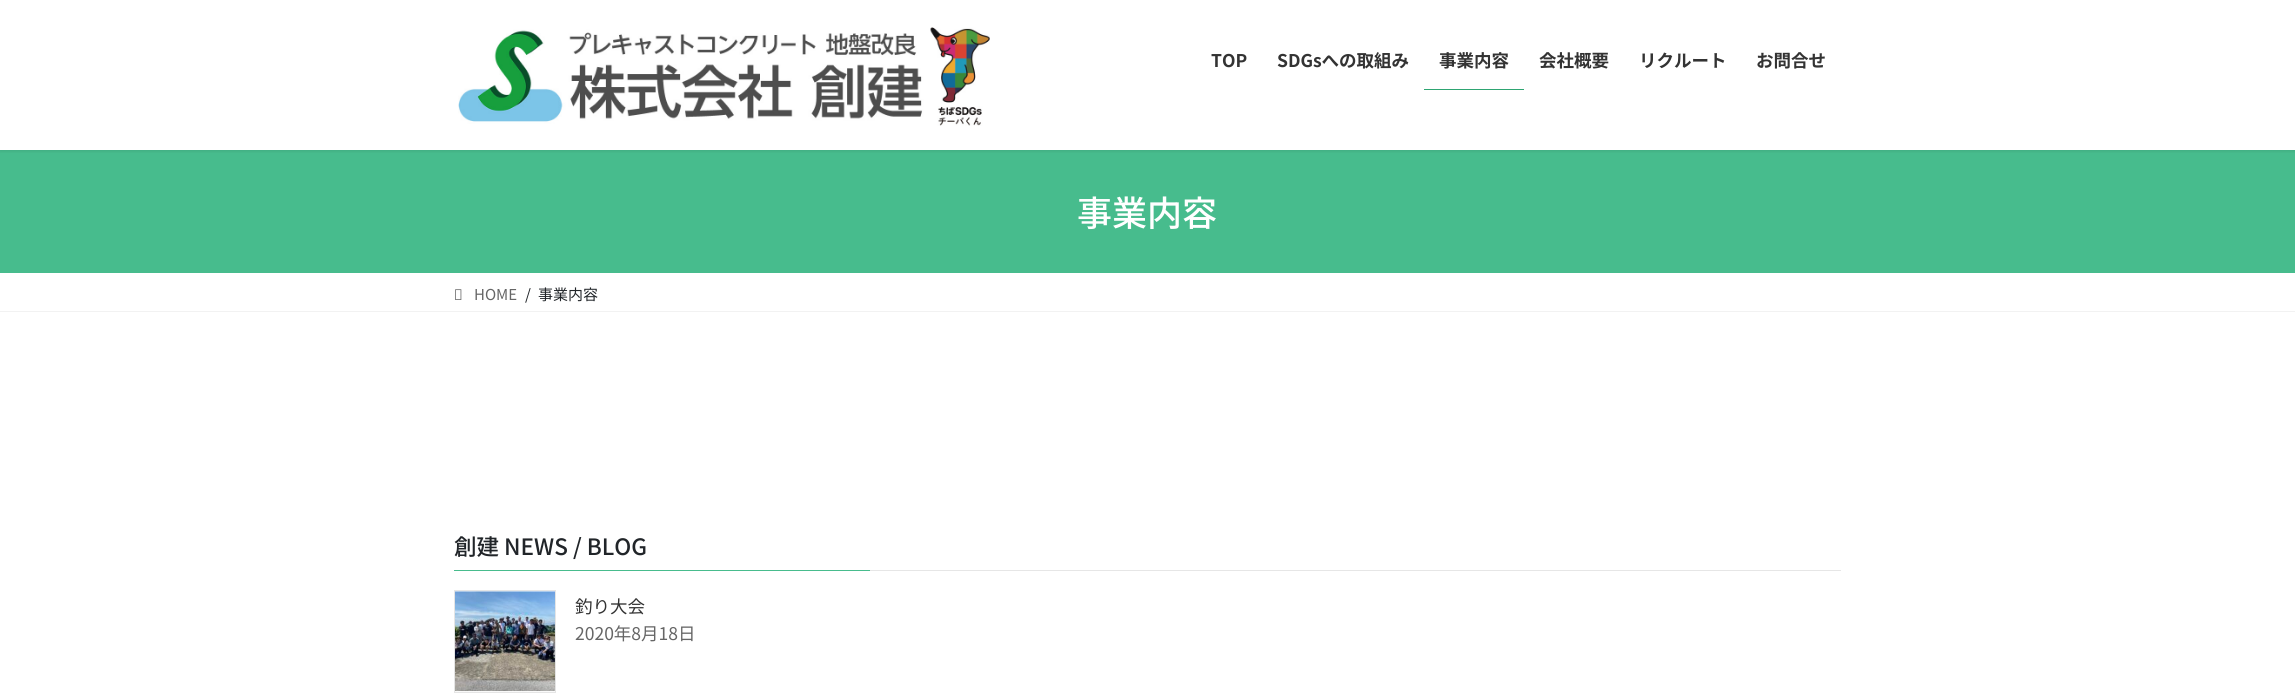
#include <cairo/cairo.h>
#include <math.h>
#include <stddef.h>

static cairo_t *cr;

static void use_color(int r, int g, int b) {
  cairo_set_source_rgb(cr, r / 255.0, g / 255.0, b / 255.0);
}

static void text(double x, double y, const char *s, const char *family, double size, int italic, int bold, int r, int g, int b) {
  cairo_select_font_face(cr, family, italic ? CAIRO_FONT_SLANT_ITALIC : CAIRO_FONT_SLANT_NORMAL,
    bold ? CAIRO_FONT_WEIGHT_BOLD : CAIRO_FONT_WEIGHT_NORMAL);
  cairo_set_font_size(cr, size);
  use_color(r, g, b);
  cairo_move_to(cr, x, y);
  cairo_show_text(cr, s);
}

static void box(double x, double y, double w, double h, int r, int g, int b) {
  use_color(r, g, b);
  cairo_rectangle(cr, x, y, w, h);
  cairo_fill(cr);
}

static void round_rect(double x, double y, double w, double h, double r) {
  cairo_new_sub_path(cr);
  cairo_arc(cr, x + w - r, y + h - r, r, 0, M_PI / 2);
  cairo_arc(cr, x + r, y + h - r, r, M_PI / 2, M_PI);
  cairo_arc(cr, x + r, y + r, r, M_PI, 1.5 * M_PI);
  cairo_arc(cr, x + w - r, y + r, r, 1.5 * M_PI, 2 * M_PI);
  cairo_close_path(cr);
}

static void shadow(double x, double y, double w, double h, double r, double blur, double alpha) {
  cairo_push_group_with_content(cr, CAIRO_CONTENT_ALPHA);
  cairo_set_operator(cr, CAIRO_OPERATOR_SOURCE);
  for (int i = 15; i >= -15 && fmin(w, h) + blur * i / 3 > 0; i -= 2) {
    double e = blur * i / 6;
    cairo_set_source_rgba(cr, 0, 0, 0, alpha * erfc((i - 1) / 8.5) / 2);
    round_rect(x - e, y - e, w + 2 * e, h + 2 * e, fmax(0, fmin(r + e + blur * .6, fmin(w, h) / 2 + e)));
    cairo_fill(cr);
  }
  cairo_pattern_t *soft = cairo_pop_group(cr);
  cairo_mask(cr, soft);
  cairo_pattern_destroy(soft);
}

static void picture(const char *path, double x, double y, double w, double h) {
  cairo_surface_t *image = cairo_image_surface_create_from_png(path);
  cairo_save(cr);
  cairo_set_source_surface(cr, image, x, y);
  cairo_rectangle(cr, x, y, w, h);
  cairo_fill(cr);
  cairo_restore(cr);
  cairo_surface_destroy(image);
}

static void draw(void) {
  use_color(255, 255, 255);
  cairo_paint(cr);
  box(0, 150, 2295, 123, 71, 188, 141);
  cairo_save(cr);
  cairo_rectangle(cr, 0, 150, 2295, 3);
  cairo_clip(cr);
  use_color(0, 0, 0);
  shadow(0, 1, 2295, 150, 0, 2, 0.1);
  cairo_restore(cr);
  picture("img_01.png", 458, 27, 532, 99);
  box(1424, 89, 100, 1, 46, 165, 114);
  box(0, 311, 2295, 1, 242, 242, 242);
  picture("img_02.png", 455, 289, 7, 11);
  box(870, 570, 971, 1, 230, 230, 230);
  box(454, 570, 416, 1, 71, 188, 141);
  cairo_rectangle(cr, 454.5, 590.5, 101, 102);
  use_color(229, 229, 229);
  cairo_set_line_width(cr, 1);
  cairo_stroke(cr);
  picture("img_03.png", 455, 591, 100, 101);
  text(1211, 67, "TOP", "Noto Sans JP", 17.5, 0, 1, 51, 51, 51);
  text(1277, 67, "SDGsへの取組み", "Noto Sans JP", 17.5, 0, 1, 51, 51, 51);
  text(1439, 67, "事業内容", "Noto Sans JP", 17.5, 0, 1, 51, 51, 51);
  text(1539, 67, "会社概要", "Noto Sans JP", 17.5, 0, 1, 51, 51, 51);
  text(1639, 67, "リクルート", "Noto Sans JP", 17.5, 0, 1, 51, 51, 51);
  text(1756, 67, "お問合せ", "Noto Sans JP", 17.5, 0, 1, 51, 51, 51);
  text(1077, 226, "事業内容", "Noto Sans JP Medium", 35, 0, 0, 255, 255, 255);
  text(474, 300, "HOME", "Noto Sans JP", 15, 0, 0, 102, 102, 102);
  text(525, 300, "/", "Noto Sans JP", 15, 0, 0, 33, 37, 41);
  text(538, 300, "事業内容", "Noto Sans JP", 15, 0, 0, 33, 37, 41);
  text(454, 555, "創建 NEWS / BLOG", "Noto Sans JP Medium", 22.5, 0, 0, 33, 37, 41);
  text(575, 613, "釣り大会", "Noto Sans JP", 17.5, 0, 0, 51, 51, 51);
  text(575, 640, "2020年8月18日", "Noto Sans JP", 17.5, 0, 0, 102, 102, 102);
}

int main(void) {
  cairo_surface_t *surface = cairo_image_surface_create(CAIRO_FORMAT_RGB24, 2295, 697);
  cr = cairo_create(surface);
  cairo_font_options_t *options = cairo_font_options_create();
  cairo_font_options_set_hint_metrics(options, CAIRO_HINT_METRICS_OFF);
  cairo_font_options_set_hint_style(options, CAIRO_HINT_STYLE_NONE);
  cairo_set_font_options(cr, options);
  cairo_set_miter_limit(cr, 4);
  draw();
  cairo_surface_write_to_png(surface, "out.png");
  cairo_font_options_destroy(options);
  cairo_destroy(cr);
  cairo_surface_destroy(surface);
  return 0;
}
